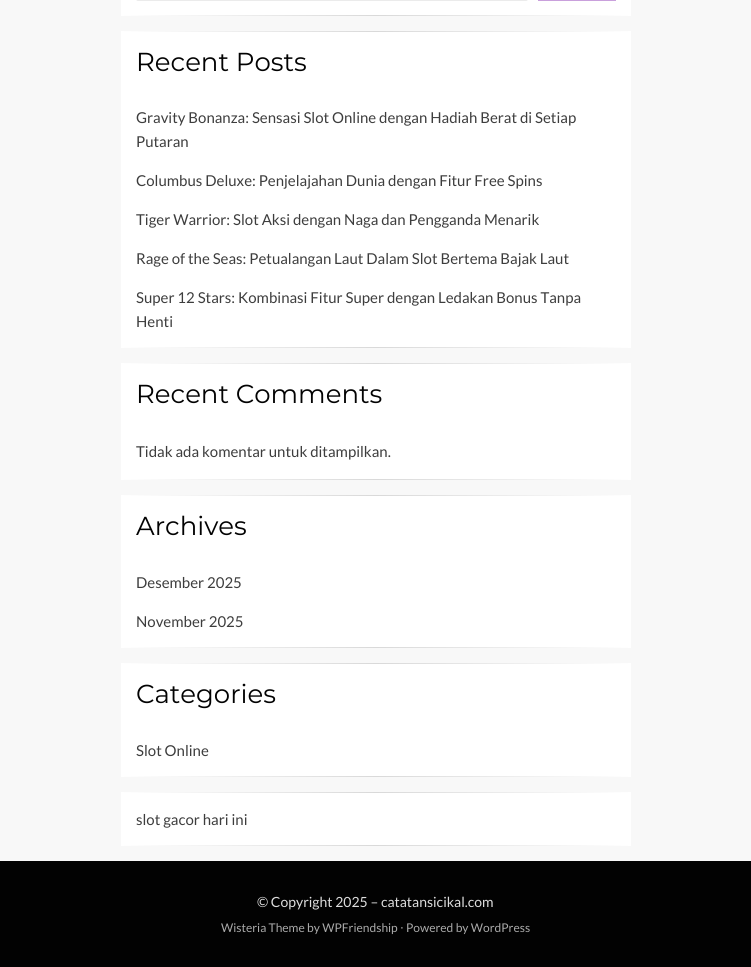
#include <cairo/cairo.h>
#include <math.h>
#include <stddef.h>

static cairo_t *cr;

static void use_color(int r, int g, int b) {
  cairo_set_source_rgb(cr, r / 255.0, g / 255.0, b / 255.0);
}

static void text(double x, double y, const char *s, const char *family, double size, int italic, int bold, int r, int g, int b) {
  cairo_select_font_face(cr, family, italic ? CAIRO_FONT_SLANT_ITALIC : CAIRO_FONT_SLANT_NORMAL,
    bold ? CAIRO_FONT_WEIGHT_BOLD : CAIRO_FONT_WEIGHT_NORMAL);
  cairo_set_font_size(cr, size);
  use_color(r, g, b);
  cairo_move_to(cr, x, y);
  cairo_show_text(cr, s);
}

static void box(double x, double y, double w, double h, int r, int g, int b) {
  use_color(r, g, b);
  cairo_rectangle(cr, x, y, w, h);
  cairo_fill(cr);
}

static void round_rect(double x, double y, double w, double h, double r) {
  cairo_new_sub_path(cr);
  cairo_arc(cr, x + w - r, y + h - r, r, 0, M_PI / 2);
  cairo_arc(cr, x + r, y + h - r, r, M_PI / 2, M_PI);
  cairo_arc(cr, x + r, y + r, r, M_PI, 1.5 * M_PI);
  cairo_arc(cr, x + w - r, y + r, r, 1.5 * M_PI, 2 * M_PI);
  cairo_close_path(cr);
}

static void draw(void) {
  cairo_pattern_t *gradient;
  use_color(248, 248, 248);
  cairo_paint(cr);
  box(121, 0, 510, 15, 255, 255, 255);
  round_rect(136.5, -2.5, 391, 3, 1.5);
  use_color(235, 235, 235);
  cairo_set_line_width(cr, 1);
  cairo_stroke(cr);
  box(538, 0, 78, 1, 201, 160, 220);
  gradient = cairo_pattern_create_linear(121, 16, 631, 15);
  cairo_pattern_add_color_stop_rgba(gradient, 0, 1, 1, 1, 1);
  cairo_pattern_add_color_stop_rgba(gradient, 0.5, 0.851, 0.851, 0.851, 1);
  cairo_pattern_add_color_stop_rgba(gradient, 1, 1, 1, 1, 1);
  cairo_set_source(cr, gradient);
  cairo_pattern_destroy(gradient);
  cairo_rectangle(cr, 121, 15, 510, 1);
  cairo_fill(cr);
  box(121, 32, 510, 315, 255, 255, 255);
  gradient = cairo_pattern_create_linear(121, 32, 631, 31);
  cairo_pattern_add_color_stop_rgba(gradient, 0, 1, 1, 1, 1);
  cairo_pattern_add_color_stop_rgba(gradient, 0.5, 0.851, 0.851, 0.851, 1);
  cairo_pattern_add_color_stop_rgba(gradient, 1, 1, 1, 1, 1);
  cairo_set_source(cr, gradient);
  cairo_pattern_destroy(gradient);
  cairo_rectangle(cr, 121, 31, 510, 1);
  cairo_fill(cr);
  gradient = cairo_pattern_create_linear(121, 348, 631, 348);
  cairo_pattern_add_color_stop_rgba(gradient, 0, 1, 1, 1, 1);
  cairo_pattern_add_color_stop_rgba(gradient, 0.5, 0.851, 0.851, 0.851, 1);
  cairo_pattern_add_color_stop_rgba(gradient, 1, 1, 1, 1, 1);
  cairo_set_source(cr, gradient);
  cairo_pattern_destroy(gradient);
  cairo_rectangle(cr, 121, 347, 510, 1);
  cairo_fill(cr);
  box(121, 364, 510, 115, 255, 255, 255);
  gradient = cairo_pattern_create_linear(121, 364, 631, 364);
  cairo_pattern_add_color_stop_rgba(gradient, 0, 1, 1, 1, 1);
  cairo_pattern_add_color_stop_rgba(gradient, 0.5, 0.851, 0.851, 0.851, 1);
  cairo_pattern_add_color_stop_rgba(gradient, 1, 1, 1, 1, 1);
  cairo_set_source(cr, gradient);
  cairo_pattern_destroy(gradient);
  cairo_rectangle(cr, 121, 363, 510, 1);
  cairo_fill(cr);
  gradient = cairo_pattern_create_linear(121, 480, 631, 480);
  cairo_pattern_add_color_stop_rgba(gradient, 0, 1, 1, 1, 1);
  cairo_pattern_add_color_stop_rgba(gradient, 0.5, 0.851, 0.851, 0.851, 1);
  cairo_pattern_add_color_stop_rgba(gradient, 1, 1, 1, 1, 1);
  cairo_set_source(cr, gradient);
  cairo_pattern_destroy(gradient);
  cairo_rectangle(cr, 121, 479, 510, 1);
  cairo_fill(cr);
  box(121, 496, 510, 151, 255, 255, 255);
  gradient = cairo_pattern_create_linear(121, 496, 631, 496);
  cairo_pattern_add_color_stop_rgba(gradient, 0, 1, 1, 1, 1);
  cairo_pattern_add_color_stop_rgba(gradient, 0.5, 0.851, 0.851, 0.851, 1);
  cairo_pattern_add_color_stop_rgba(gradient, 1, 1, 1, 1, 1);
  cairo_set_source(cr, gradient);
  cairo_pattern_destroy(gradient);
  cairo_rectangle(cr, 121, 495, 510, 1);
  cairo_fill(cr);
  gradient = cairo_pattern_create_linear(121, 648, 631, 648);
  cairo_pattern_add_color_stop_rgba(gradient, 0, 1, 1, 1, 1);
  cairo_pattern_add_color_stop_rgba(gradient, 0.5, 0.851, 0.851, 0.851, 1);
  cairo_pattern_add_color_stop_rgba(gradient, 1, 1, 1, 1, 1);
  cairo_set_source(cr, gradient);
  cairo_pattern_destroy(gradient);
  cairo_rectangle(cr, 121, 647, 510, 1);
  cairo_fill(cr);
  box(121, 664, 510, 112, 255, 255, 255);
  gradient = cairo_pattern_create_linear(121, 664, 631, 664);
  cairo_pattern_add_color_stop_rgba(gradient, 0, 1, 1, 1, 1);
  cairo_pattern_add_color_stop_rgba(gradient, 0.5, 0.851, 0.851, 0.851, 1);
  cairo_pattern_add_color_stop_rgba(gradient, 1, 1, 1, 1, 1);
  cairo_set_source(cr, gradient);
  cairo_pattern_destroy(gradient);
  cairo_rectangle(cr, 121, 663, 510, 1);
  cairo_fill(cr);
  gradient = cairo_pattern_create_linear(121, 777, 631, 777);
  cairo_pattern_add_color_stop_rgba(gradient, 0, 1, 1, 1, 1);
  cairo_pattern_add_color_stop_rgba(gradient, 0.5, 0.851, 0.851, 0.851, 1);
  cairo_pattern_add_color_stop_rgba(gradient, 1, 1, 1, 1, 1);
  cairo_set_source(cr, gradient);
  cairo_pattern_destroy(gradient);
  cairo_rectangle(cr, 121, 776, 510, 1);
  cairo_fill(cr);
  box(121, 793, 510, 52, 255, 255, 255);
  gradient = cairo_pattern_create_linear(121, 793, 631, 793);
  cairo_pattern_add_color_stop_rgba(gradient, 0, 1, 1, 1, 1);
  cairo_pattern_add_color_stop_rgba(gradient, 0.5, 0.851, 0.851, 0.851, 1);
  cairo_pattern_add_color_stop_rgba(gradient, 1, 1, 1, 1, 1);
  cairo_set_source(cr, gradient);
  cairo_pattern_destroy(gradient);
  cairo_rectangle(cr, 121, 792, 510, 1);
  cairo_fill(cr);
  gradient = cairo_pattern_create_linear(121, 846, 631, 846);
  cairo_pattern_add_color_stop_rgba(gradient, 0, 1, 1, 1, 1);
  cairo_pattern_add_color_stop_rgba(gradient, 0.5, 0.851, 0.851, 0.851, 1);
  cairo_pattern_add_color_stop_rgba(gradient, 1, 1, 1, 1, 1);
  cairo_set_source(cr, gradient);
  cairo_pattern_destroy(gradient);
  cairo_rectangle(cr, 121, 845, 510, 1);
  cairo_fill(cr);
  box(0, 861, 751, 106, 2, 2, 2);
  text(136, 71, "Recent Posts", "Montserrat", 26, 0, 0, 2, 2, 2);
  text(136, 123, "Gravity Bonanza: Sensasi Slot Online dengan Hadiah Berat di Setiap", "Lato", 15, 0, 0, 61, 61, 61);
  text(136, 147, "Putaran", "Lato", 15, 0, 0, 61, 61, 61);
  text(136, 186, "Columbus Deluxe: Penjelajahan Dunia dengan Fitur Free Spins", "Lato", 15, 0, 0, 61, 61, 61);
  text(136, 225, "Tiger Warrior: Slot Aksi dengan Naga dan Pengganda Menarik", "Lato", 15, 0, 0, 61, 61, 61);
  text(136, 264, "Rage of the Seas: Petualangan Laut Dalam Slot Bertema Bajak Laut", "Lato", 15, 0, 0, 61, 61, 61);
  text(136, 303, "Super 12 Stars: Kombinasi Fitur Super dengan Ledakan Bonus Tanpa", "Lato", 15, 0, 0, 61, 61, 61);
  text(136, 327, "Henti", "Lato", 15, 0, 0, 61, 61, 61);
  text(136, 403, "Recent Comments", "Montserrat", 26, 0, 0, 2, 2, 2);
  text(136, 457, "Tidak ada komentar untuk ditampilkan.", "Lato", 15, 0, 0, 61, 61, 61);
  text(136, 535, "Archives", "Montserrat", 26, 0, 0, 2, 2, 2);
  text(136, 588, "Desember 2025", "Lato", 15, 0, 0, 61, 61, 61);
  text(136, 627, "November 2025", "Lato", 15, 0, 0, 61, 61, 61);
  text(136, 703, "Categories", "Montserrat", 26, 0, 0, 2, 2, 2);
  text(136, 756, "Slot Online", "Lato", 15, 0, 0, 61, 61, 61);
  text(136, 825, "slot gacor hari ini", "Lato", 15, 0, 0, 61, 61, 61);
  text(257, 907, "© Copyright 2025 – catatansicikal.com", "Lato", 14, 0, 0, 221, 221, 221);
  text(221, 932, "Wisteria Theme by WPFriendship", "Lato", 12, 0, 0, 170, 170, 170);
  text(400, 932, "⋅", "DejaVu Sans", 12, 0, 0, 170, 170, 170);
  text(406, 932, "Powered by WordPress", "Lato", 12, 0, 0, 170, 170, 170);
}

int main(void) {
  cairo_surface_t *surface = cairo_image_surface_create(CAIRO_FORMAT_RGB24, 751, 967);
  cr = cairo_create(surface);
  cairo_font_options_t *options = cairo_font_options_create();
  cairo_font_options_set_hint_metrics(options, CAIRO_HINT_METRICS_OFF);
  cairo_font_options_set_hint_style(options, CAIRO_HINT_STYLE_NONE);
  cairo_set_font_options(cr, options);
  cairo_set_miter_limit(cr, 4);
  draw();
  cairo_surface_write_to_png(surface, "out.png");
  cairo_font_options_destroy(options);
  cairo_destroy(cr);
  cairo_surface_destroy(surface);
  return 0;
}
